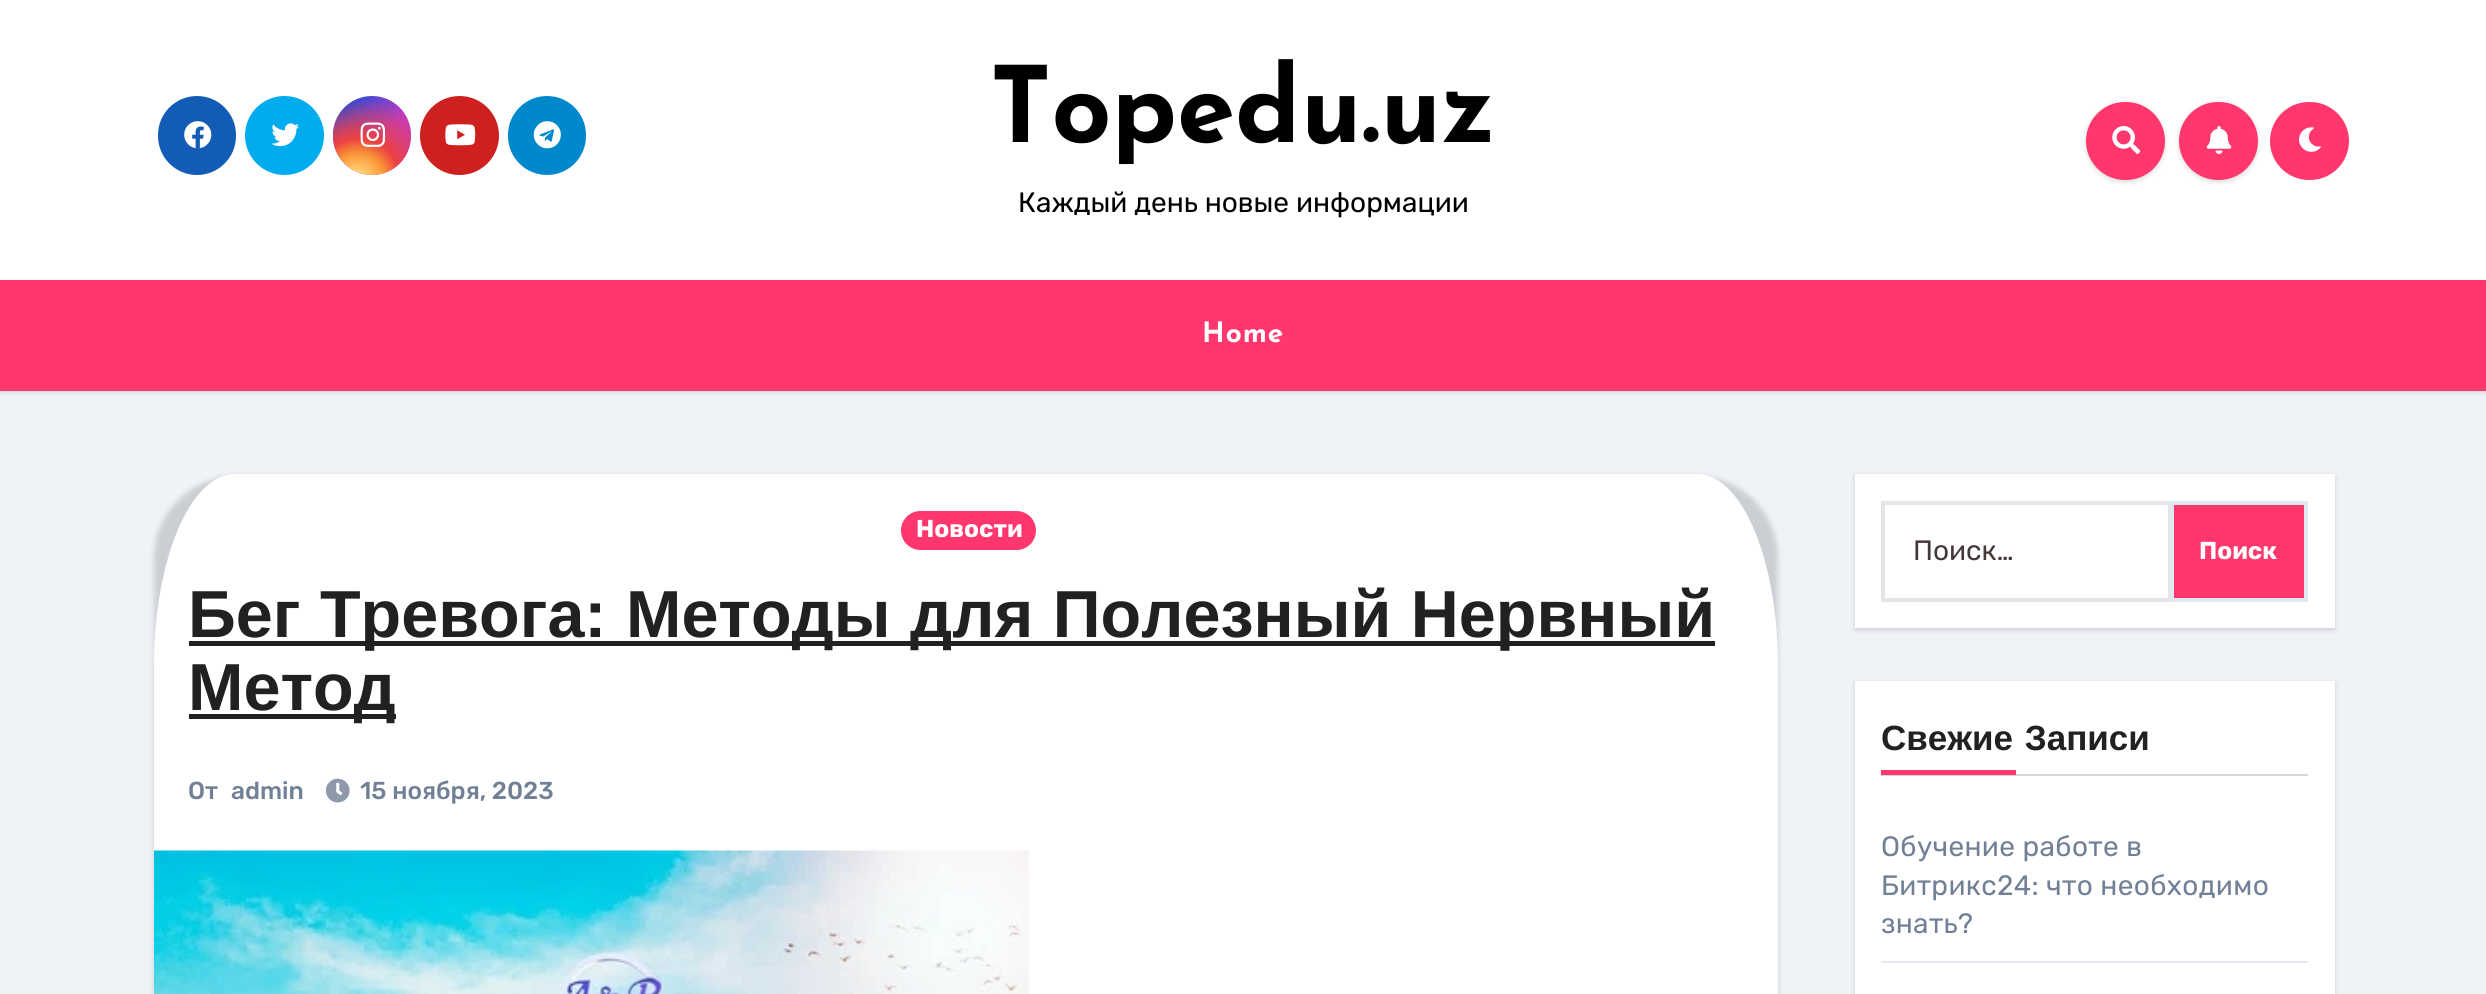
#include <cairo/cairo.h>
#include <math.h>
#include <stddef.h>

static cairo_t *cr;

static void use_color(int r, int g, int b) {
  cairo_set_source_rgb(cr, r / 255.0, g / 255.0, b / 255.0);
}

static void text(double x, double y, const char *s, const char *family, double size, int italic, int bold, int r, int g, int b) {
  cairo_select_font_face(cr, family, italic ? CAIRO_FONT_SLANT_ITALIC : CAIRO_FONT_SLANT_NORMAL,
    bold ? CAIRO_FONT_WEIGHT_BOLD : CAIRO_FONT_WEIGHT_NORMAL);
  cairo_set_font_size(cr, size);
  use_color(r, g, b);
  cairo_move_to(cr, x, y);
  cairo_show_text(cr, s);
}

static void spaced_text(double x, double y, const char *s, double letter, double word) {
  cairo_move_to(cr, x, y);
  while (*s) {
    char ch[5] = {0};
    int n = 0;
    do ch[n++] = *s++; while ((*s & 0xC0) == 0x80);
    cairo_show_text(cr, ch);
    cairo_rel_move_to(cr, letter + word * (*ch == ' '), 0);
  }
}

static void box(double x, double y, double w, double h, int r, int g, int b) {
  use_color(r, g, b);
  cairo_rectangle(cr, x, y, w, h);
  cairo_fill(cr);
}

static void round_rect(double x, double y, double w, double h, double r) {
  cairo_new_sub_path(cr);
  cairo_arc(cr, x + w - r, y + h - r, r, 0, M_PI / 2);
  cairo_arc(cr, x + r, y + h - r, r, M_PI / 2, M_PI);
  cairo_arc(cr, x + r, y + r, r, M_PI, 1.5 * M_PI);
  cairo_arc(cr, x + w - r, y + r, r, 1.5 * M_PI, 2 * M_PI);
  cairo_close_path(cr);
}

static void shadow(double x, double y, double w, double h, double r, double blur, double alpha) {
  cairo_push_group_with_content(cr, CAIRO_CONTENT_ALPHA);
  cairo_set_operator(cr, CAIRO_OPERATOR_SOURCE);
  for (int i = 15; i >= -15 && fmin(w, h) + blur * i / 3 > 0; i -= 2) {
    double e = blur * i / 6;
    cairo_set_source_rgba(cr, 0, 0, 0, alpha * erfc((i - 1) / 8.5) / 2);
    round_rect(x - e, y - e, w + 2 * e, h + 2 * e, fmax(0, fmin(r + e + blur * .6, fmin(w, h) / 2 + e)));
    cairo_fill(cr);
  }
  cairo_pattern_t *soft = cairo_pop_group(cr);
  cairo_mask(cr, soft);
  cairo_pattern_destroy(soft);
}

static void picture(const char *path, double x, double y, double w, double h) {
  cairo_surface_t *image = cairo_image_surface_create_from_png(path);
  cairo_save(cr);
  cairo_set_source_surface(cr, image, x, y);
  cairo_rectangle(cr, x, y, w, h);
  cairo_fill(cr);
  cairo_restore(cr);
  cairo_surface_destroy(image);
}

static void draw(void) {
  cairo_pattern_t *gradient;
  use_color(239, 242, 247);
  cairo_paint(cr);
  box(0, 0, 2486, 280, 255, 255, 255);
  use_color(19, 92, 182);
  round_rect(158, 96, 78, 79, 39);
  cairo_fill(cr);
  picture("img_01.png", 184, 121, 28, 28);
  use_color(0, 172, 237);
  cairo_arc(cr, 284.5, 135.5, 39.5, 0, 2 * M_PI);
  cairo_fill(cr);
  picture("img_02.png", 271, 123, 29, 24);
  gradient = cairo_pattern_create_linear(333, 96, 411, 175);
  cairo_pattern_add_color_stop_rgba(gradient, 0.12, 0.137, 0.294, 0.843, 1);
  cairo_pattern_add_color_stop_rgba(gradient, 0.58, 0.765, 0.235, 0.745, 1);
  cairo_set_source(cr, gradient);
  cairo_pattern_destroy(gradient);
  round_rect(333, 96, 78, 79, 39);
  cairo_fill(cr);
  gradient = cairo_pattern_create_radial(358, 180, 0, 358, 180, 99);
  cairo_pattern_add_color_stop_rgba(gradient, 0, 1, 0.882, 0.49, 1);
  cairo_pattern_add_color_stop_rgba(gradient, 0.1, 1, 0.804, 0.412, 1);
  cairo_pattern_add_color_stop_rgba(gradient, 0.28, 0.98, 0.569, 0.216, 1);
  cairo_pattern_add_color_stop_rgba(gradient, 0.42, 0.922, 0.255, 0.255, 1);
  cairo_pattern_add_color_stop_rgba(gradient, 0.82, 0.922, 0.255, 0.255, 0);
  cairo_set_source(cr, gradient);
  cairo_pattern_destroy(gradient);
  round_rect(333, 96, 78, 79, 39);
  cairo_fill(cr);
  picture("img_03.png", 360, 122, 26, 25);
  use_color(205, 32, 31);
  cairo_arc(cr, 459.5, 135.5, 39.5, 0, 2 * M_PI);
  cairo_fill(cr);
  picture("img_04.png", 445, 124, 31, 22);
  use_color(0, 136, 204);
  round_rect(508, 96, 78, 79, 39);
  cairo_fill(cr);
  picture("img_05.png", 533, 121, 28, 28);
  use_color(0, 0, 0);
  shadow(2086, 103, 79, 79, 39.5, 2.5, 0.15);
  use_color(255, 55, 108);
  round_rect(2086, 102, 79, 78, 39);
  cairo_fill(cr);
  picture("img_06.png", 2112, 126, 29, 28);
  use_color(0, 0, 0);
  shadow(2179, 103, 79, 79, 39.5, 2.5, 0.15);
  use_color(255, 55, 108);
  round_rect(2179, 102, 79, 78, 39);
  cairo_fill(cr);
  picture("img_07.png", 2206, 126, 26, 28);
  round_rect(2270, 102, 79, 78, 39);
  cairo_fill(cr);
  picture("img_08.png", 2299, 127, 22, 25);
  use_color(0, 0, 0);
  shadow(0, 282, 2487, 110, 0, 2.5, 0.15);
  box(0, 280, 2486, 111, 255, 55, 108);
  use_color(0, 0, 0);
  shadow(154, 476, 1624, 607, 81, 2.5, 0.15);
  use_color(255, 255, 255);
  cairo_new_path(cr);
  cairo_move_to(cr, 235, 474);
  cairo_line_to(cr, 1697, 474);
  cairo_curve_to(cr, 1742, 474, 1778, 560, 1778, 666);
  cairo_line_to(cr, 1778, 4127);
  cairo_curve_to(cr, 1778, 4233, 1742, 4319, 1697, 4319);
  cairo_line_to(cr, 235, 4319);
  cairo_curve_to(cr, 190, 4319, 154, 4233, 154, 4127);
  cairo_line_to(cr, 154, 666);
  cairo_curve_to(cr, 154, 560, 190, 474, 235, 474);
  cairo_close_path(cr);
  cairo_fill(cr);
  use_color(255, 55, 108);
  round_rect(901, 511, 135, 39, 19.5);
  cairo_fill(cr);
  box(189, 641, 1526, 5, 33, 33, 33);
  box(189, 714, 207, 5, 33, 33, 33);
  picture("img_09.png", 325, 778, 25, 25);
  picture("img_10.png", 154, 850, 875, 144);
  use_color(0, 0, 0);
  shadow(1855, 476, 480, 154, 0, 2.5, 0.15);
  box(1855, 474, 480, 154, 255, 255, 255);
  cairo_rectangle(cr, 1883, 503, 287, 97);
  use_color(229, 229, 229);
  cairo_set_line_width(cr, 4);
  cairo_stroke(cr);
  use_color(255, 55, 108);
  cairo_rectangle(cr, 2172, 503, 134, 97);
  cairo_fill_preserve(cr);
  use_color(226, 232, 240);
  cairo_stroke(cr);
  use_color(0, 0, 0);
  shadow(1855, 683, 480, 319, 0, 2.5, 0.15);
  box(1855, 681, 480, 313, 255, 255, 255);
  box(1881, 774, 427, 2, 215, 215, 215);
  box(1881, 770, 135, 5, 255, 55, 108);
  box(1881, 961, 427, 2, 226, 232, 240);
  text(990, 142, "Topedu.uz", "Josefin Sans", 105, 0, 1, 0, 0, 0);
  text(1018, 212, "Каждый день новые информации", "Rubik Light", 28, 0, 0, 0, 0, 0);
  cairo_select_font_face(cr, "Josefin Sans", CAIRO_FONT_SLANT_NORMAL, CAIRO_FONT_WEIGHT_BOLD);
  use_color(255, 255, 255);
  spaced_text(1202, 342, "Home", 1, 0);
  text(916, 537, "Новости", "Rubik", 24.5, 0, 1, 255, 255, 255);
  cairo_select_font_face(cr, "Liberation Sans", CAIRO_FONT_SLANT_NORMAL, CAIRO_FONT_WEIGHT_BOLD);
  cairo_set_font_size(cr, 66.5);
  use_color(33, 33, 33);
  spaced_text(188, 637, "Бег Тревога: Методы для Полезный Нервный", 0, 1);
  text(188, 710, "Метод", "Liberation Sans", 66.5, 0, 1, 33, 33, 33);
  text(188, 799, "От", "Rubik Medium", 24.5, 0, 0, 113, 128, 150);
  text(231, 799, "admin", "Rubik Medium", 24.5, 0, 0, 113, 128, 150);
  text(360, 799, "15 ноября, 2023", "Rubik Medium", 24.5, 0, 0, 113, 128, 150);
  text(1913, 560, "Поиск…", "Rubik Light", 28, 0, 0, 70, 56, 56);
  text(2199, 559, "Поиск", "Rubik", 24.5, 0, 1, 255, 255, 255);
  cairo_select_font_face(cr, "Liberation Sans", CAIRO_FONT_SLANT_NORMAL, CAIRO_FONT_WEIGHT_BOLD);
  cairo_set_font_size(cr, 35);
  use_color(33, 33, 33);
  spaced_text(1881, 750, "Свежие Записи", 0, 2);
  cairo_select_font_face(cr, "Rubik Light", CAIRO_FONT_SLANT_NORMAL, CAIRO_FONT_WEIGHT_NORMAL);
  cairo_set_font_size(cr, 28);
  use_color(113, 128, 150);
  spaced_text(1881, 856, "Обучение работе в", 0.35, 0);
  spaced_text(1881, 895, "Битрикс24: что необходимо", 0.35, 0);
  spaced_text(1881, 933, "знать?", 0.35, 0);
}

int main(void) {
  cairo_surface_t *surface = cairo_image_surface_create(CAIRO_FORMAT_RGB24, 2486, 994);
  cr = cairo_create(surface);
  cairo_font_options_t *options = cairo_font_options_create();
  cairo_font_options_set_hint_metrics(options, CAIRO_HINT_METRICS_OFF);
  cairo_font_options_set_hint_style(options, CAIRO_HINT_STYLE_NONE);
  cairo_set_font_options(cr, options);
  cairo_set_miter_limit(cr, 4);
  draw();
  cairo_surface_write_to_png(surface, "out.png");
  cairo_font_options_destroy(options);
  cairo_destroy(cr);
  cairo_surface_destroy(surface);
  return 0;
}
